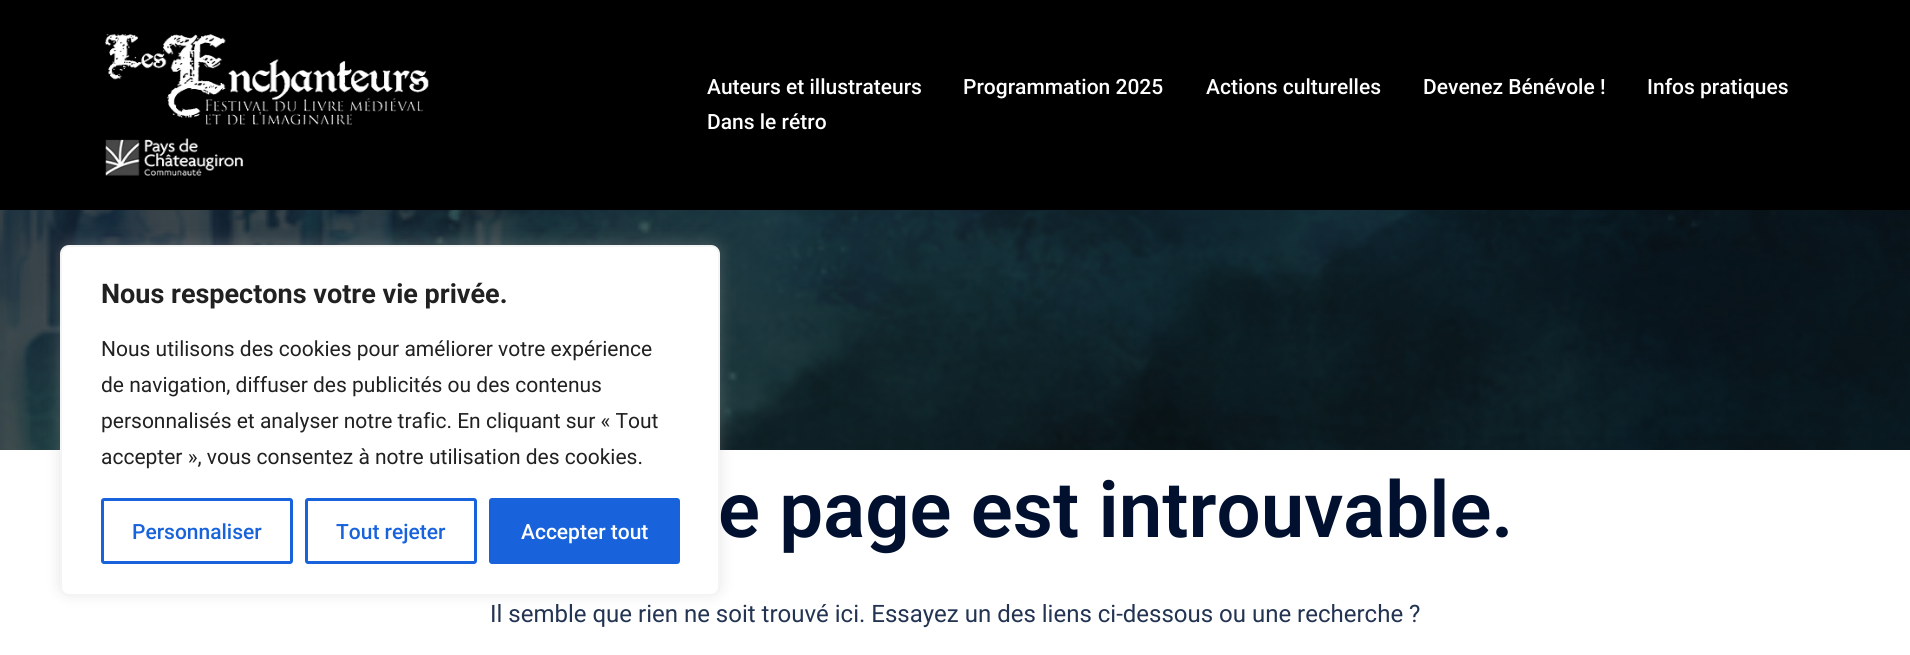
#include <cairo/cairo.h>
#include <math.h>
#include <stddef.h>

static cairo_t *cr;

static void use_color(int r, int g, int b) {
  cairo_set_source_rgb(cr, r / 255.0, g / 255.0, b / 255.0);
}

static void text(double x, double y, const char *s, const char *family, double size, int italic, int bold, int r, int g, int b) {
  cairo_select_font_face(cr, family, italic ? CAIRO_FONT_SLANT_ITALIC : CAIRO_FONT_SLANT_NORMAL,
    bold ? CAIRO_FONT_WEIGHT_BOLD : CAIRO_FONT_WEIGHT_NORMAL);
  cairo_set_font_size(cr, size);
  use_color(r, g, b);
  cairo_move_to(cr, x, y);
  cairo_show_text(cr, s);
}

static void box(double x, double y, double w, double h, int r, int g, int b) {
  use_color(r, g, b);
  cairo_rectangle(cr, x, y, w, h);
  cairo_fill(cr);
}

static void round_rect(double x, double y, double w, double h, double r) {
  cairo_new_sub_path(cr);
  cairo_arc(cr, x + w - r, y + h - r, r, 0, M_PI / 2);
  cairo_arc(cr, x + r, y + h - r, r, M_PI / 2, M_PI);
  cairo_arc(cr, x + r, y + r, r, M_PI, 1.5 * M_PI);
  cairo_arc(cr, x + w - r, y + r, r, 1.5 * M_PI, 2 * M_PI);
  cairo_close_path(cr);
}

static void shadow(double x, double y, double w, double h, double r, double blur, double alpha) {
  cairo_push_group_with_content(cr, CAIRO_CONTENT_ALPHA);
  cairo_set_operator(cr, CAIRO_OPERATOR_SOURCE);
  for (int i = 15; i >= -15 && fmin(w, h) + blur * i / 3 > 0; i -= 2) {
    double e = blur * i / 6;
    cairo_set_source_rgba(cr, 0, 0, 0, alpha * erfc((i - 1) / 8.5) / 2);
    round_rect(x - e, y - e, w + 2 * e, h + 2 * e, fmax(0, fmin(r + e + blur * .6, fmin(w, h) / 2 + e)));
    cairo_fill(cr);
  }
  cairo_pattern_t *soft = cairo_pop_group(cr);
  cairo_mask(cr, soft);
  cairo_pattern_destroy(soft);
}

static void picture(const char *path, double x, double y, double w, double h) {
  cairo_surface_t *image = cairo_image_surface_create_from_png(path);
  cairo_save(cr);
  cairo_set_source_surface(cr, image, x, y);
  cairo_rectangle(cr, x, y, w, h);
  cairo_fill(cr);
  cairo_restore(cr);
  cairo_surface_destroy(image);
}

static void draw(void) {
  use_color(255, 255, 255);
  cairo_paint(cr);
  picture("img_02.png", 0, 210, 1910, 240);
  use_color(172, 171, 171);
  shadow(60, 243, 660, 351, 9, 7.5, 0.3);
  use_color(255, 255, 255);
  round_rect(61, 246, 658, 349, 8);
  cairo_fill_preserve(cr);
  use_color(244, 244, 244);
  cairo_stroke(cr);
  round_rect(102.5, 499.5, 189, 63, 1.5);
  use_color(24, 99, 220);
  cairo_set_line_width(cr, 3);
  cairo_stroke(cr);
  round_rect(306.5, 499.5, 169, 63, 1.5);
  cairo_stroke(cr);
  round_rect(490.5, 499.5, 188, 63, 1.5);
  cairo_fill_preserve(cr);
  cairo_stroke(cr);
  box(0, 0, 1910, 210, 0, 0, 0);
  picture("img_01.png", 104, 34, 325, 142);
  text(101, 303, "Nous respectons votre vie privée.", "Roboto", 27, 0, 1, 33, 33, 33);
  text(101, 356, "Nous utilisons des cookies pour améliorer votre expérience", "Roboto", 21, 0, 0, 33, 33, 33);
  text(101, 392, "de navigation, diffuser des publicités ou des contenus", "Roboto", 21, 0, 0, 33, 33, 33);
  text(101, 428, "personnalisés et analyser notre trafic. En cliquant sur « Tout", "Roboto", 21, 0, 0, 33, 33, 33);
  text(101, 464, "accepter », vous consentez à notre utilisation des cookies.", "Roboto", 21, 0, 0, 33, 33, 33);
  text(132, 539, "Personnaliser", "Roboto Medium", 21, 0, 0, 24, 99, 220);
  text(336, 539, "Tout rejeter", "Roboto Medium", 21, 0, 0, 24, 99, 220);
  text(521, 539, "Accepter tout", "Roboto Medium", 21, 0, 0, 255, 255, 255);
  text(707, 94, "Auteurs et illustrateurs", "Roboto Medium", 21, 0, 0, 255, 255, 255);
  text(963, 94, "Programmation 2025", "Roboto Medium", 21, 0, 0, 255, 255, 255);
  text(1206, 94, "Actions culturelles", "Roboto Medium", 21, 0, 0, 255, 255, 255);
  text(1423, 94, "Devenez Bénévole !", "Roboto Medium", 21, 0, 0, 255, 255, 255);
  text(1647, 94, "Infos pratiques", "Roboto Medium", 21, 0, 0, 255, 255, 255);
  text(707, 129, "Dans le rétro", "Roboto Medium", 21, 0, 0, 255, 255, 255);
  text(718, 537, "e page est introuvable.", "Roboto SemiBold", 78, 0, 0, 0, 16, 46);
  text(490, 622, "Il semble que rien ne soit trouvé ici. Essayez un des liens ci-dessous ou une recherche ?", "Roboto", 24, 0, 0, 35, 52, 82);
}

int main(void) {
  cairo_surface_t *surface = cairo_image_surface_create(CAIRO_FORMAT_RGB24, 1910, 655);
  cr = cairo_create(surface);
  cairo_font_options_t *options = cairo_font_options_create();
  cairo_font_options_set_hint_metrics(options, CAIRO_HINT_METRICS_OFF);
  cairo_font_options_set_hint_style(options, CAIRO_HINT_STYLE_NONE);
  cairo_set_font_options(cr, options);
  cairo_set_miter_limit(cr, 4);
  draw();
  cairo_surface_write_to_png(surface, "out.png");
  cairo_font_options_destroy(options);
  cairo_destroy(cr);
  cairo_surface_destroy(surface);
  return 0;
}
